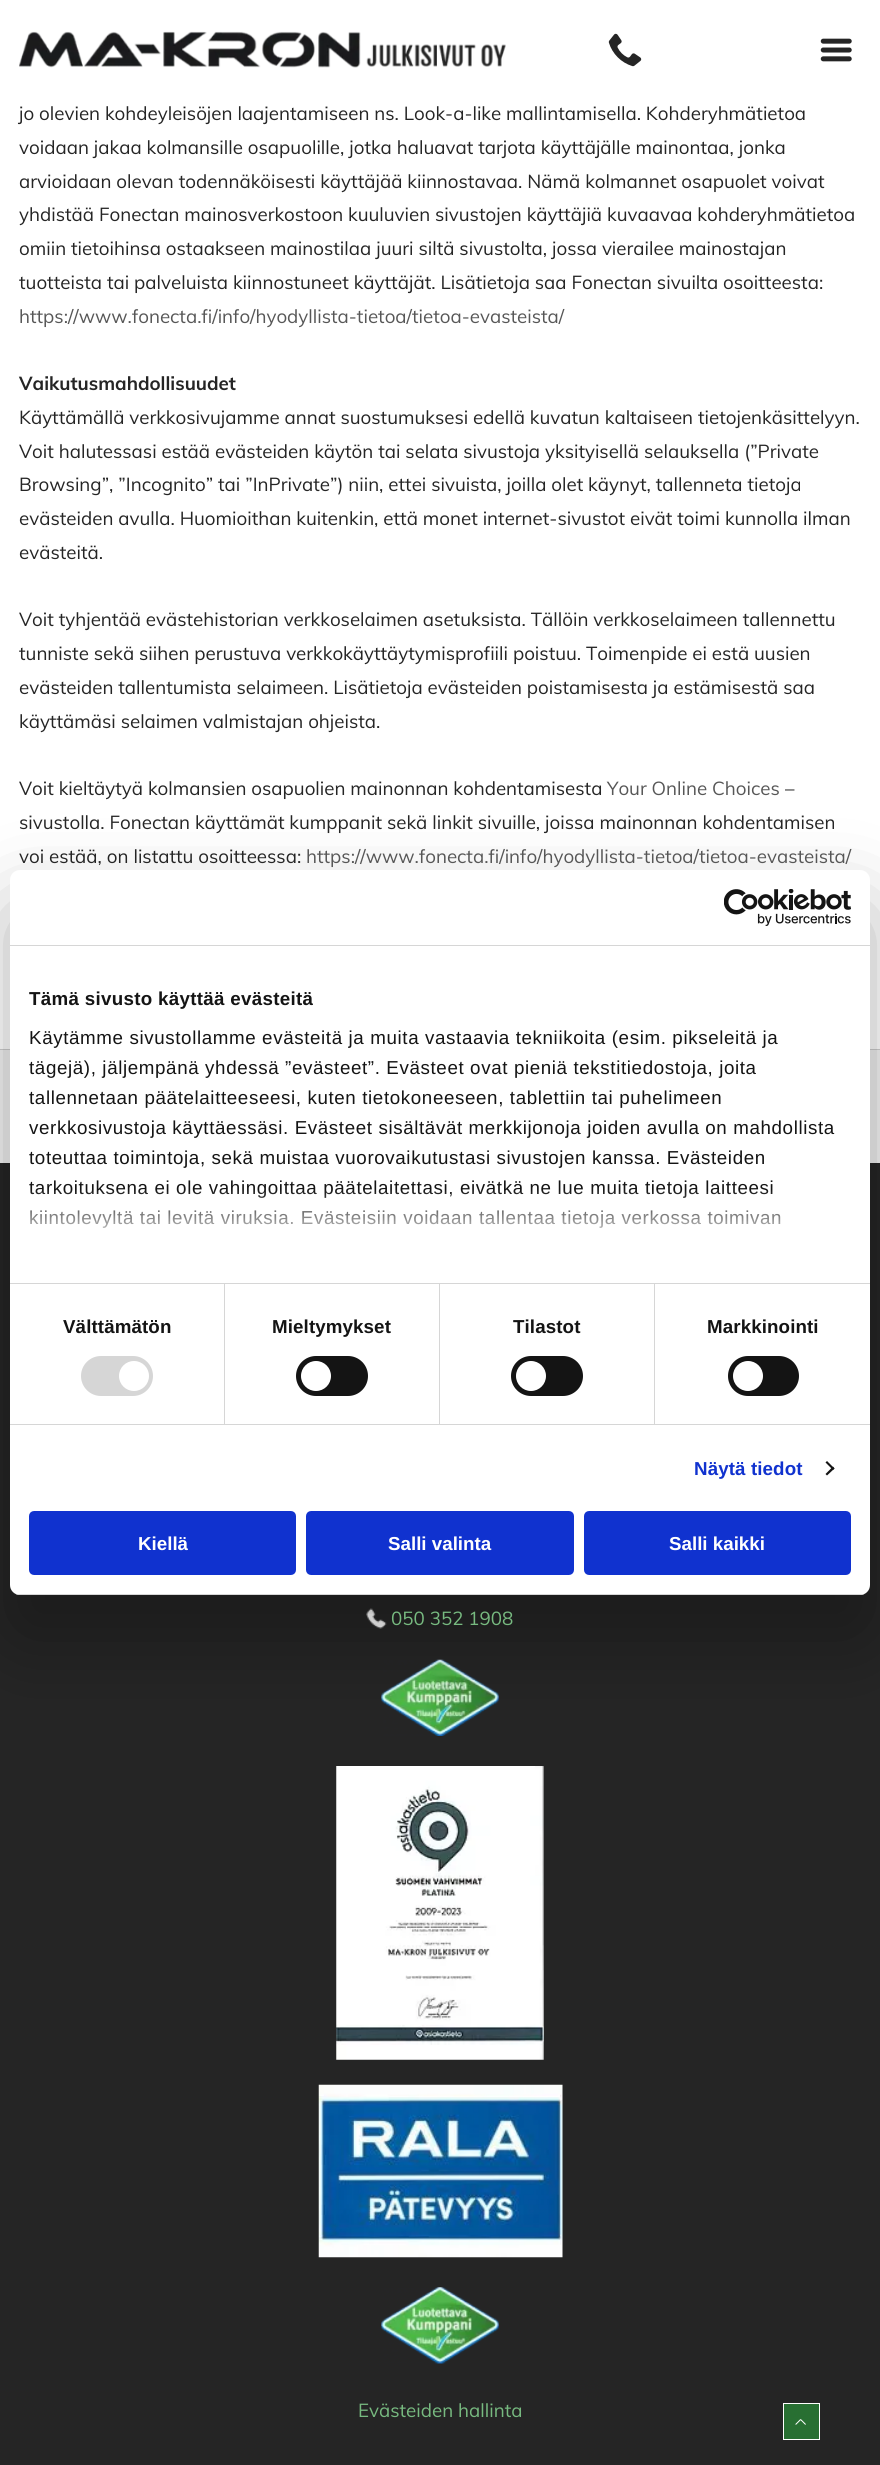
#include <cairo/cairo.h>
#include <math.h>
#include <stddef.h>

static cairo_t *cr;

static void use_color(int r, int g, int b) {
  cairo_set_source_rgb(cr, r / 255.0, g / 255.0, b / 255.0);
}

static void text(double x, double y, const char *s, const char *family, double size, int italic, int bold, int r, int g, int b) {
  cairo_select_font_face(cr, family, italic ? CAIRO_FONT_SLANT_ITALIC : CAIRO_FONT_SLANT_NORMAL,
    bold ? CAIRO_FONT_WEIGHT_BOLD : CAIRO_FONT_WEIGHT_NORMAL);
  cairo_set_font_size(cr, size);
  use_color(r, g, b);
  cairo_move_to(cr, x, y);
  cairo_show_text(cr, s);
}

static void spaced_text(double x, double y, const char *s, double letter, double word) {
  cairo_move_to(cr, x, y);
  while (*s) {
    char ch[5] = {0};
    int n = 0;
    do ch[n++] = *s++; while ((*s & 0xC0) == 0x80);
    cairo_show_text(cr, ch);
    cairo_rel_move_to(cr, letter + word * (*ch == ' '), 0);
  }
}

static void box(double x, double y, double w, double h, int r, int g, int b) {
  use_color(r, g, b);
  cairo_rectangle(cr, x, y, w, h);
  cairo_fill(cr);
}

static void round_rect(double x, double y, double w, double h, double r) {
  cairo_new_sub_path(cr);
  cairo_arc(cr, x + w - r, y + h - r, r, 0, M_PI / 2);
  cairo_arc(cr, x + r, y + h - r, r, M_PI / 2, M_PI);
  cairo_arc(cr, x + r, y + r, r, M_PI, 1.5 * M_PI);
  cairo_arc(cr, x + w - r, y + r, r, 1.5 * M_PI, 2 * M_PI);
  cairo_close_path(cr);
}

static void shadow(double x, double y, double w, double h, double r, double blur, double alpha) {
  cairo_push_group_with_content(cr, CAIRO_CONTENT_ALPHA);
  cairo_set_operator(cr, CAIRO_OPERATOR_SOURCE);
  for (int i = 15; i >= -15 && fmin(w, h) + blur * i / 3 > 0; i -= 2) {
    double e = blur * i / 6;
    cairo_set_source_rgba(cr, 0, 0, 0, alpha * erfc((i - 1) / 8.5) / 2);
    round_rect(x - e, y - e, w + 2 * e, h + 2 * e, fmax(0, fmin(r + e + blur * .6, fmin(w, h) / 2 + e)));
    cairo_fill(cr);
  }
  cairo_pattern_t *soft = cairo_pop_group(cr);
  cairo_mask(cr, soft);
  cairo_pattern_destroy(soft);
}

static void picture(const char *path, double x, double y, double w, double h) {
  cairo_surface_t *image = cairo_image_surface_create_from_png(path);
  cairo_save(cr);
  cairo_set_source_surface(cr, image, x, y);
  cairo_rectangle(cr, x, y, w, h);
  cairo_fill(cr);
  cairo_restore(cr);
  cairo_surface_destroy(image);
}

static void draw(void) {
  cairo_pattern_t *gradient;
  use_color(255, 255, 255);
  cairo_paint(cr);
  picture("img_01.png", 19, 31, 487, 37);
  picture("img_02.png", 608, 33, 34, 34);
  picture("img_03.png", 820, 38, 32, 24);
  box(0, 1050, 880, 113, 241, 241, 241);
  box(0, 1049, 880, 1, 204, 204, 204);
  box(0, 1163, 880, 1302, 37, 37, 37);
  picture("img_04.png", 366, 1608, 21, 21);
  picture("img_05.png", 381, 1659, 118, 77);
  picture("img_06.png", 336, 1766, 208, 294);
  picture("img_07.png", 318, 2084, 245, 174);
  picture("img_08.png", 381, 2287, 118, 77);
  use_color(40, 111, 50);
  cairo_rectangle(cr, 783.5, 2403.5, 36, 36);
  cairo_fill_preserve(cr);
  use_color(255, 255, 255);
  cairo_set_line_width(cr, 1);
  cairo_stroke(cr);
  picture("img_09.png", 795, 2419, 11, 6);
  use_color(0, 0, 0);
  shadow(10, 910, 860, 725, 10, 42.5, 0.3);
  use_color(255, 255, 255);
  round_rect(10, 870, 860, 725, 10);
  cairo_fill(cr);
  box(10, 945, 860, 1, 214, 214, 214);
  picture("img_10.png", 724, 889, 127, 37);
  box(10, 1283, 860, 1, 214, 214, 214);
  box(10, 1424, 860, 1, 214, 214, 214);
  box(224, 1284, 1, 140, 214, 214, 214);
  round_rect(81, 1356, 72, 40, 20);
  cairo_fill(cr);
  use_color(255, 255, 255);
  cairo_arc(cr, 134, 1376, 15, 0, 2 * M_PI);
  cairo_fill(cr);
  box(439, 1284, 1, 140, 214, 214, 214);
  use_color(20, 20, 20);
  round_rect(296, 1356, 72, 40, 20);
  cairo_fill(cr);
  use_color(255, 255, 255);
  cairo_arc(cr, 316, 1376, 15, 0, 2 * M_PI);
  cairo_fill(cr);
  box(654, 1284, 1, 140, 214, 214, 214);
  use_color(20, 20, 20);
  round_rect(511, 1356, 72, 40, 20);
  cairo_fill(cr);
  use_color(255, 255, 255);
  cairo_arc(cr, 531, 1376, 15, 0, 2 * M_PI);
  cairo_fill(cr);
  use_color(20, 20, 20);
  round_rect(728, 1356, 71, 40, 20);
  cairo_fill(cr);
  use_color(255, 255, 255);
  cairo_arc(cr, 748, 1376, 15, 0, 2 * M_PI);
  cairo_fill(cr);
  use_color(20, 20, 20);
  cairo_new_path(cr);
  cairo_move_to(cr, 827, 1461);
  cairo_line_to(cr, 834.5, 1468.5);
  cairo_line_to(cr, 833, 1470);
  cairo_line_to(cr, 825.5, 1462.5);
  cairo_close_path(cr);
  cairo_fill(cr);
  cairo_new_path(cr);
  cairo_move_to(cr, 833, 1466.5);
  cairo_line_to(cr, 834.5, 1468.5);
  cairo_line_to(cr, 827, 1475.5);
  cairo_line_to(cr, 825.5, 1474);
  cairo_close_path(cr);
  cairo_fill(cr);
  cairo_save(cr);
  round_rect(10, 870, 860, 725, 10);
  cairo_clip(cr);
  box(10, 1594, 860, 1, 214, 214, 214);
  cairo_restore(cr);
  use_color(16, 50, 207);
  round_rect(30.5, 1512.5, 264, 61, 3.5);
  cairo_fill_preserve(cr);
  cairo_set_line_width(cr, 3);
  cairo_stroke(cr);
  round_rect(307.5, 1512.5, 265, 61, 3.5);
  cairo_fill_preserve(cr);
  cairo_stroke(cr);
  round_rect(585.5, 1512.5, 264, 61, 3.5);
  cairo_fill_preserve(cr);
  cairo_stroke(cr);
  text(19, 120, "jo olevien kohdeyleisöjen laajentamiseen ns. Look-a-like mallintamisella. Kohderyhmätietoa", "Muli", 18.75, 0, 0, 37, 37, 37);
  text(19, 154, "voidaan jakaa kolmansille osapuolille, jotka haluavat tarjota käyttäjälle mainontaa, jonka", "Muli", 18.75, 0, 0, 37, 37, 37);
  text(19, 188, "arvioidaan olevan todennäköisesti käyttäjää kiinnostavaa. Nämä kolmannet osapuolet voivat", "Muli", 18.75, 0, 0, 37, 37, 37);
  text(19, 221, "yhdistää Fonectan mainosverkostoon kuuluvien sivustojen käyttäjiä kuvaavaa kohderyhmätietoa", "Muli", 18.75, 0, 0, 37, 37, 37);
  text(19, 255, "omiin tietoihinsa ostaakseen mainostilaa juuri siltä sivustolta, jossa vierailee mainostajan", "Muli", 18.75, 0, 0, 37, 37, 37);
  text(19, 289, "tuotteista tai palveluista kiinnostuneet käyttäjät. Lisätietoja saa Fonectan sivuilta osoitteesta:", "Muli", 18.75, 0, 0, 37, 37, 37);
  text(19, 323, "https://www.fonecta.fi/info/hyodyllista-tietoa/tietoa-evasteista/", "Muli", 18.75, 0, 0, 87, 87, 87);
  text(19, 390, "Vaikutusmahdollisuudet", "Muli", 18.75, 0, 1, 37, 37, 37);
  text(19, 424, "Käyttämällä verkkosivujamme annat suostumuksesi edellä kuvatun kaltaiseen tietojenkäsittelyyn.", "Muli", 18.75, 0, 0, 37, 37, 37);
  text(19, 458, "Voit halutessasi estää evästeiden käytön tai selata sivustoja yksityisellä selauksella (”Private", "Muli", 18.75, 0, 0, 37, 37, 37);
  text(19, 491, "Browsing”, ”Incognito” tai ”InPrivate”) niin, ettei sivuista, joilla olet käynyt, tallenneta tietoja", "Muli", 18.75, 0, 0, 37, 37, 37);
  text(19, 525, "evästeiden avulla. Huomioithan kuitenkin, että monet internet-sivustot eivät toimi kunnolla ilman", "Muli", 18.75, 0, 0, 37, 37, 37);
  text(19, 559, "evästeitä.", "Muli", 18.75, 0, 0, 37, 37, 37);
  text(19, 626, "Voit tyhjentää evästehistorian verkkoselaimen asetuksista. Tällöin verkkoselaimeen tallennettu", "Muli", 18.75, 0, 0, 37, 37, 37);
  text(19, 660, "tunniste sekä siihen perustuva verkkokäyttäytymisprofiili poistuu. Toimenpide ei estä uusien", "Muli", 18.75, 0, 0, 37, 37, 37);
  text(19, 694, "evästeiden tallentumista selaimeen. Lisätietoja evästeiden poistamisesta ja estämisestä saa", "Muli", 18.75, 0, 0, 37, 37, 37);
  text(19, 728, "käyttämäsi selaimen valmistajan ohjeista.", "Muli", 18.75, 0, 0, 37, 37, 37);
  text(19, 795, "Voit kieltäytyä kolmansien osapuolien mainonnan kohdentamisesta", "Muli", 18.75, 0, 0, 37, 37, 37);
  text(607, 795, "Your Online Choices", "Muli", 18.75, 0, 0, 87, 87, 87);
  text(785, 795, "–", "Muli", 18.75, 0, 0, 37, 37, 37);
  text(19, 829, "sivustolla. Fonectan käyttämät kumppanit sekä linkit sivuille, joissa mainonnan kohdentamisen", "Muli", 18.75, 0, 0, 37, 37, 37);
  text(19, 863, "voi estää, on listattu osoitteessa:", "Muli", 18.75, 0, 0, 37, 37, 37);
  text(306, 863, "https://www.fonecta.fi/info/hyodyllista-tietoa/tietoa-evasteista/", "Muli", 18.75, 0, 0, 87, 87, 87);
  text(391, 1625, "050 352 1908", "Muli", 18.75, 0, 0, 119, 186, 128);
  text(358, 2417, "Evästeiden hallinta", "Muli", 18.75, 0, 0, 119, 186, 128);
  cairo_select_font_face(cr, "Liberation Sans", CAIRO_FONT_SLANT_NORMAL, CAIRO_FONT_WEIGHT_BOLD);
  use_color(20, 20, 20);
  spaced_text(29, 1005, "Tämä sivusto käyttää evästeitä", 0.3, 0);
  cairo_select_font_face(cr, "Liberation Sans", CAIRO_FONT_SLANT_NORMAL, CAIRO_FONT_WEIGHT_NORMAL);
  spaced_text(29, 1044, "Käytämme sivustollamme evästeitä ja muita vastaavia tekniikoita (esim. pikseleitä ja", 0.62, 0);
  spaced_text(29, 1074, "tägejä), jäljempänä yhdessä ”evästeet”. Evästeet ovat pieniä tekstitiedostoja, joita", 0.62, 0);
  spaced_text(29, 1104, "tallennetaan päätelaitteeseesi, kuten tietokoneeseen, tablettiin tai puhelimeen", 0.62, 0);
  spaced_text(29, 1134, "verkkosivustoja käyttäessäsi. Evästeet sisältävät merkkijonoja joiden avulla on mahdollista", 0.62, 0);
  spaced_text(29, 1164, "toteuttaa toimintoja, sekä muistaa vuorovaikutustasi sivustojen kanssa. Evästeiden", 0.62, 0);
  spaced_text(29, 1194, "tarkoituksena ei ole vahingoittaa päätelaitettasi, eivätkä ne lue muita tietoja laitteesi", 0.62, 0);
  spaced_text(29, 1224, "kiintolevyltä tai levitä viruksia. Evästeisiin voidaan tallentaa tietoja verkossa toimivan", 0.62, 0);
  gradient = cairo_pattern_create_linear(432, 1282, 432, 1189);
  cairo_pattern_add_color_stop_rgba(gradient, 0, 1, 1, 1, 1);
  cairo_pattern_add_color_stop_rgba(gradient, 0.5, 1, 1, 1, 0.8);
  cairo_pattern_add_color_stop_rgba(gradient, 1, 1, 1, 1, 0);
  cairo_set_source(cr, gradient);
  cairo_pattern_destroy(gradient);
  cairo_rectangle(cr, 30, 1190, 751, 38);
  cairo_fill(cr);
  cairo_select_font_face(cr, "Liberation Sans", CAIRO_FONT_SLANT_NORMAL, CAIRO_FONT_WEIGHT_BOLD);
  use_color(20, 20, 20);
  spaced_text(63, 1333, "Välttämätön", 0.1, 0);
  spaced_text(272, 1333, "Mieltymykset", 0.1, 0);
  spaced_text(513, 1333, "Tilastot", 0.1, 0);
  spaced_text(707, 1333, "Markkinointi", 0.1, 0);
  use_color(16, 50, 207);
  spaced_text(694, 1475, "Näytä tiedot", 0.1, 0);
  text(138, 1550, "Kiellä", "Liberation Sans", 18.75, 0, 1, 255, 255, 255);
  text(388, 1550, "Salli valinta", "Liberation Sans", 18.75, 0, 1, 255, 255, 255);
  text(669, 1550, "Salli kaikki", "Liberation Sans", 18.75, 0, 1, 255, 255, 255);
}

int main(void) {
  cairo_surface_t *surface = cairo_image_surface_create(CAIRO_FORMAT_RGB24, 880, 2465);
  cr = cairo_create(surface);
  cairo_font_options_t *options = cairo_font_options_create();
  cairo_font_options_set_hint_metrics(options, CAIRO_HINT_METRICS_OFF);
  cairo_font_options_set_hint_style(options, CAIRO_HINT_STYLE_NONE);
  cairo_set_font_options(cr, options);
  cairo_set_miter_limit(cr, 4);
  draw();
  cairo_surface_write_to_png(surface, "out.png");
  cairo_font_options_destroy(options);
  cairo_destroy(cr);
  cairo_surface_destroy(surface);
  return 0;
}
